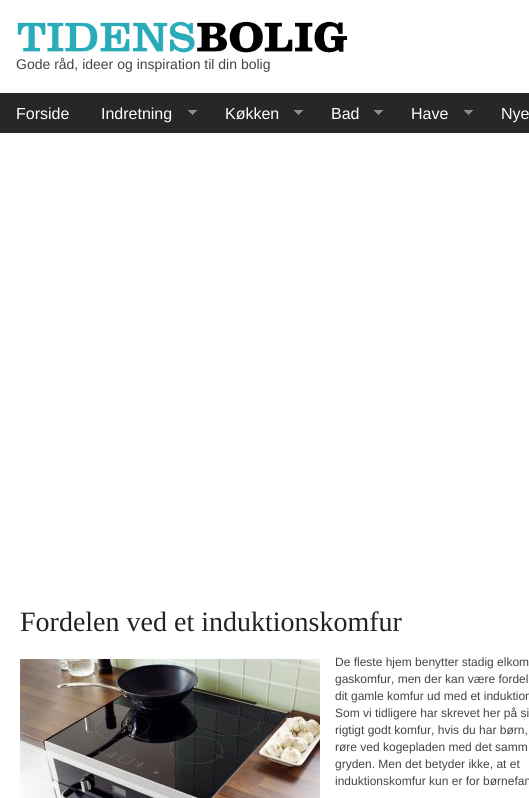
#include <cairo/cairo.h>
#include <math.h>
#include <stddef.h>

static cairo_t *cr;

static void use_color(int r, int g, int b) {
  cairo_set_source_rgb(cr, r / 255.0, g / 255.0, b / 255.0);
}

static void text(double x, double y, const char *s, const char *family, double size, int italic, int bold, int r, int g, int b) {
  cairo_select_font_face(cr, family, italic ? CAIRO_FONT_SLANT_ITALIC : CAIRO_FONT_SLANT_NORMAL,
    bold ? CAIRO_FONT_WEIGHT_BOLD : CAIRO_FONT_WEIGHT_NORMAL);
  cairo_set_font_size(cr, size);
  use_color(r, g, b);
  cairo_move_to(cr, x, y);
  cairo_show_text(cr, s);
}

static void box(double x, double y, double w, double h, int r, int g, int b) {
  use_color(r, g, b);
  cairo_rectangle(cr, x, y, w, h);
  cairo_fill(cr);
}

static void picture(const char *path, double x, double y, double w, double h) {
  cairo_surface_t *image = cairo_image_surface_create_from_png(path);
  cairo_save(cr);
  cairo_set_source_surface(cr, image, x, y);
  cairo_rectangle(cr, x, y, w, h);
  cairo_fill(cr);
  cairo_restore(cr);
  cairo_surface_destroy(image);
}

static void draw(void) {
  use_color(255, 255, 255);
  cairo_paint(cr);
  picture("img_01.png", 17, 21, 331, 32);
  box(0, 93, 529, 40, 39, 39, 39);
  picture("img_02.png", 188, 110, 9, 5);
  picture("img_02.png", 294, 110, 9, 5);
  picture("img_02.png", 374, 110, 9, 5);
  picture("img_02.png", 464, 110, 9, 5);
  picture("img_03.png", 20, 659, 300, 139);
  text(16, 69, "Gode råd, ideer og inspiration til din bolig", "Liberation Sans", 14, 0, 0, 68, 68, 68);
  text(16, 119, "Forside", "Liberation Sans", 16, 0, 0, 255, 255, 255);
  text(101, 119, "Indretning", "Liberation Sans", 16, 0, 0, 255, 255, 255);
  text(225, 119, "Køkken", "Liberation Sans", 16, 0, 0, 255, 255, 255);
  text(331, 119, "Bad", "Liberation Sans", 16, 0, 0, 255, 255, 255);
  text(411, 119, "Have", "Liberation Sans", 16, 0, 0, 255, 255, 255);
  text(501, 119, "Nye", "Liberation Sans", 16, 0, 0, 255, 255, 255);
  text(20, 631, "Fordelen ved et induktionskomfur", "Liberation Serif", 28, 0, 0, 34, 34, 34);
  text(335, 666, "De fleste hjem benytter stadig elkom", "Liberation Sans", 12, 0, 0, 68, 68, 68);
  text(335, 683, "gaskomfur, men der kan være fordel", "Liberation Sans", 12, 0, 0, 68, 68, 68);
  text(335, 700, "dit gamle komfur ud med et induktion", "Liberation Sans", 12, 0, 0, 68, 68, 68);
  text(335, 717, "Som vi tidligere har skrevet her på si", "Liberation Sans", 12, 0, 0, 68, 68, 68);
  text(335, 734, "rigtigt godt komfur, hvis du har børn,", "Liberation Sans", 12, 0, 0, 68, 68, 68);
  text(335, 751, "røre ved kogepladen med det samm", "Liberation Sans", 12, 0, 0, 68, 68, 68);
  text(335, 768, "gryden. Men det betyder ikke, at et", "Liberation Sans", 12, 0, 0, 68, 68, 68);
  text(335, 785, "induktionskomfur kun er for børnefam", "Liberation Sans", 12, 0, 0, 68, 68, 68);
}

int main(void) {
  cairo_surface_t *surface = cairo_image_surface_create(CAIRO_FORMAT_RGB24, 529, 798);
  cr = cairo_create(surface);
  cairo_font_options_t *options = cairo_font_options_create();
  cairo_font_options_set_hint_metrics(options, CAIRO_HINT_METRICS_OFF);
  cairo_font_options_set_hint_style(options, CAIRO_HINT_STYLE_NONE);
  cairo_set_font_options(cr, options);
  cairo_set_miter_limit(cr, 4);
  draw();
  cairo_surface_write_to_png(surface, "out.png");
  cairo_font_options_destroy(options);
  cairo_destroy(cr);
  cairo_surface_destroy(surface);
  return 0;
}
